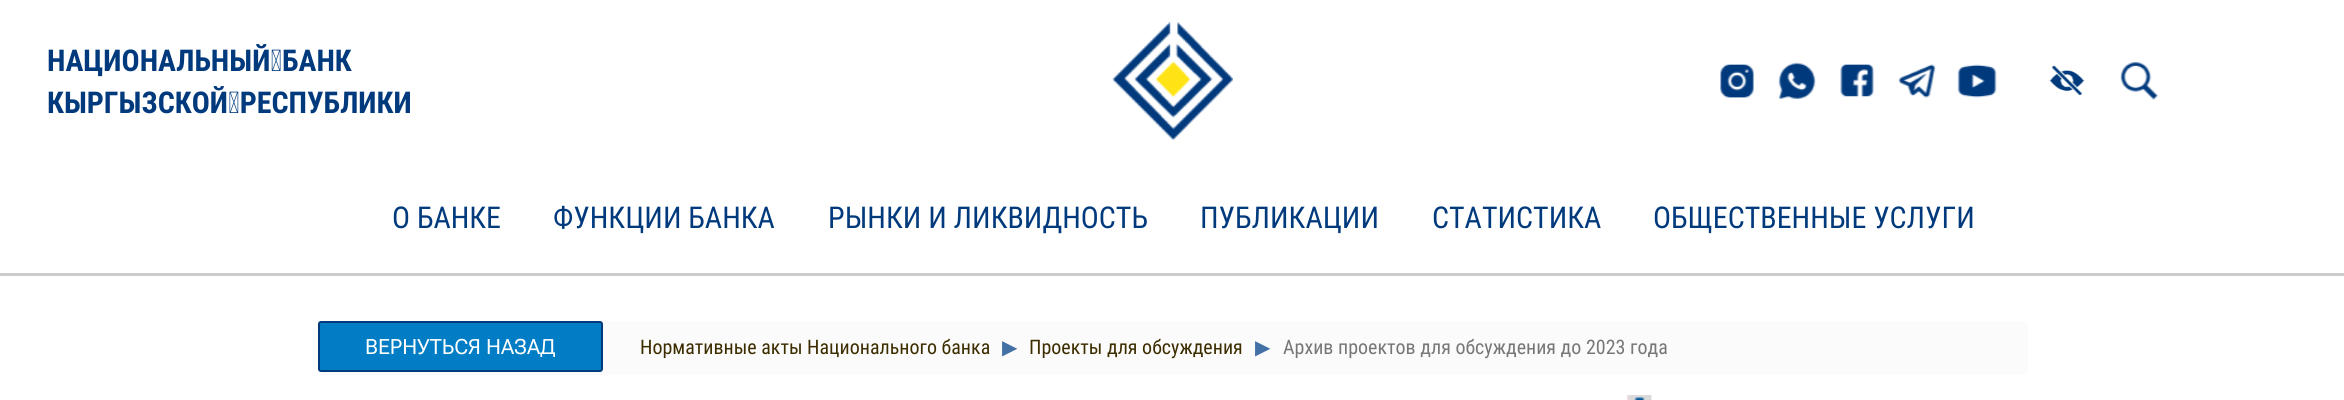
#include <cairo/cairo.h>
#include <math.h>
#include <stddef.h>

static cairo_t *cr;

static void use_color(int r, int g, int b) {
  cairo_set_source_rgb(cr, r / 255.0, g / 255.0, b / 255.0);
}

static void text(double x, double y, const char *s, const char *family, double size, int italic, int bold, int r, int g, int b) {
  cairo_select_font_face(cr, family, italic ? CAIRO_FONT_SLANT_ITALIC : CAIRO_FONT_SLANT_NORMAL,
    bold ? CAIRO_FONT_WEIGHT_BOLD : CAIRO_FONT_WEIGHT_NORMAL);
  cairo_set_font_size(cr, size);
  use_color(r, g, b);
  cairo_move_to(cr, x, y);
  cairo_show_text(cr, s);
}

static void box(double x, double y, double w, double h, int r, int g, int b) {
  use_color(r, g, b);
  cairo_rectangle(cr, x, y, w, h);
  cairo_fill(cr);
}

static void round_rect(double x, double y, double w, double h, double r) {
  cairo_new_sub_path(cr);
  cairo_arc(cr, x + w - r, y + h - r, r, 0, M_PI / 2);
  cairo_arc(cr, x + r, y + h - r, r, M_PI / 2, M_PI);
  cairo_arc(cr, x + r, y + r, r, M_PI, 1.5 * M_PI);
  cairo_arc(cr, x + w - r, y + r, r, 1.5 * M_PI, 2 * M_PI);
  cairo_close_path(cr);
}

static void picture(const char *path, double x, double y, double w, double h) {
  cairo_surface_t *image = cairo_image_surface_create_from_png(path);
  cairo_save(cr);
  cairo_set_source_surface(cr, image, x, y);
  cairo_rectangle(cr, x, y, w, h);
  cairo_fill(cr);
  cairo_restore(cr);
  cairo_surface_destroy(image);
}

static void draw(void) {
  use_color(255, 255, 255);
  cairo_paint(cr);
  picture("img_01.png", 1112, 22, 121, 118);
  picture("img_02.png", 1720, 64, 34, 34);
  picture("img_03.png", 1778, 62, 38, 38);
  picture("img_04.png", 1840, 64, 34, 33);
  picture("img_05.png", 1898, 64, 38, 34);
  picture("img_06.png", 1957, 64, 40, 34);
  picture("img_07.png", 2049, 65, 36, 31);
  picture("img_08.png", 2120, 62, 39, 38);
  box(0, 273, 2344, 3, 204, 204, 204);
  use_color(252, 251, 251);
  round_rect(318, 321, 1710, 54, 6);
  cairo_fill(cr);
  use_color(1, 125, 197);
  round_rect(319, 322, 283, 49, 2);
  cairo_fill_preserve(cr);
  use_color(0, 58, 125);
  cairo_stroke(cr);
  picture("img_09.png", 1627, 395, 25, 5);
  text(47, 71, "НАЦИОНАЛЬНЫЙ БАНК", "Roboto Condensed", 30, 0, 1, 0, 58, 125);
  text(47, 113, "КЫРГЫЗСКОЙ РЕСПУБЛИКИ", "Roboto Condensed", 30, 0, 1, 0, 58, 125);
  text(392, 228, "О БАНКЕ", "Roboto Condensed", 30, 0, 0, 0, 58, 125);
  text(553, 228, "ФУНКЦИИ БАНКА", "Roboto Condensed", 30, 0, 0, 0, 58, 125);
  text(828, 228, "РЫНКИ И ЛИКВИДНОСТЬ", "Roboto Condensed", 30, 0, 0, 0, 58, 125);
  text(1200, 228, "ПУБЛИКАЦИИ", "Roboto Condensed", 30, 0, 0, 0, 58, 125);
  text(1432, 228, "СТАТИСТИКА", "Roboto Condensed", 30, 0, 0, 0, 58, 125);
  text(1653, 228, "ОБЩЕСТВЕННЫЕ УСЛУГИ", "Roboto Condensed", 30, 0, 0, 0, 58, 125);
  text(365, 354, "ВЕРНУТЬСЯ НАЗАД", "Roboto Flex", 21, 0, 0, 255, 255, 255);
  text(640, 354, "Нормативные акты Национального банка", "Roboto Condensed", 20, 0, 0, 60, 45, 0);
  text(1002, 354, "▶", "DejaVu Sans", 20, 0, 0, 67, 113, 165);
  text(1029, 354, "Проекты для обсуждения", "Roboto Condensed", 20, 0, 0, 60, 45, 0);
  text(1255, 354, "▶", "DejaVu Sans", 20, 0, 0, 67, 113, 165);
  text(1283, 354, "Архив проектов для обсуждения до 2023 года", "Roboto Condensed", 20, 0, 0, 119, 119, 119);
}

int main(void) {
  cairo_surface_t *surface = cairo_image_surface_create(CAIRO_FORMAT_RGB24, 2344, 400);
  cr = cairo_create(surface);
  cairo_font_options_t *options = cairo_font_options_create();
  cairo_font_options_set_hint_metrics(options, CAIRO_HINT_METRICS_OFF);
  cairo_font_options_set_hint_style(options, CAIRO_HINT_STYLE_NONE);
  cairo_set_font_options(cr, options);
  cairo_set_miter_limit(cr, 4);
  draw();
  cairo_surface_write_to_png(surface, "out.png");
  cairo_font_options_destroy(options);
  cairo_destroy(cr);
  cairo_surface_destroy(surface);
  return 0;
}
